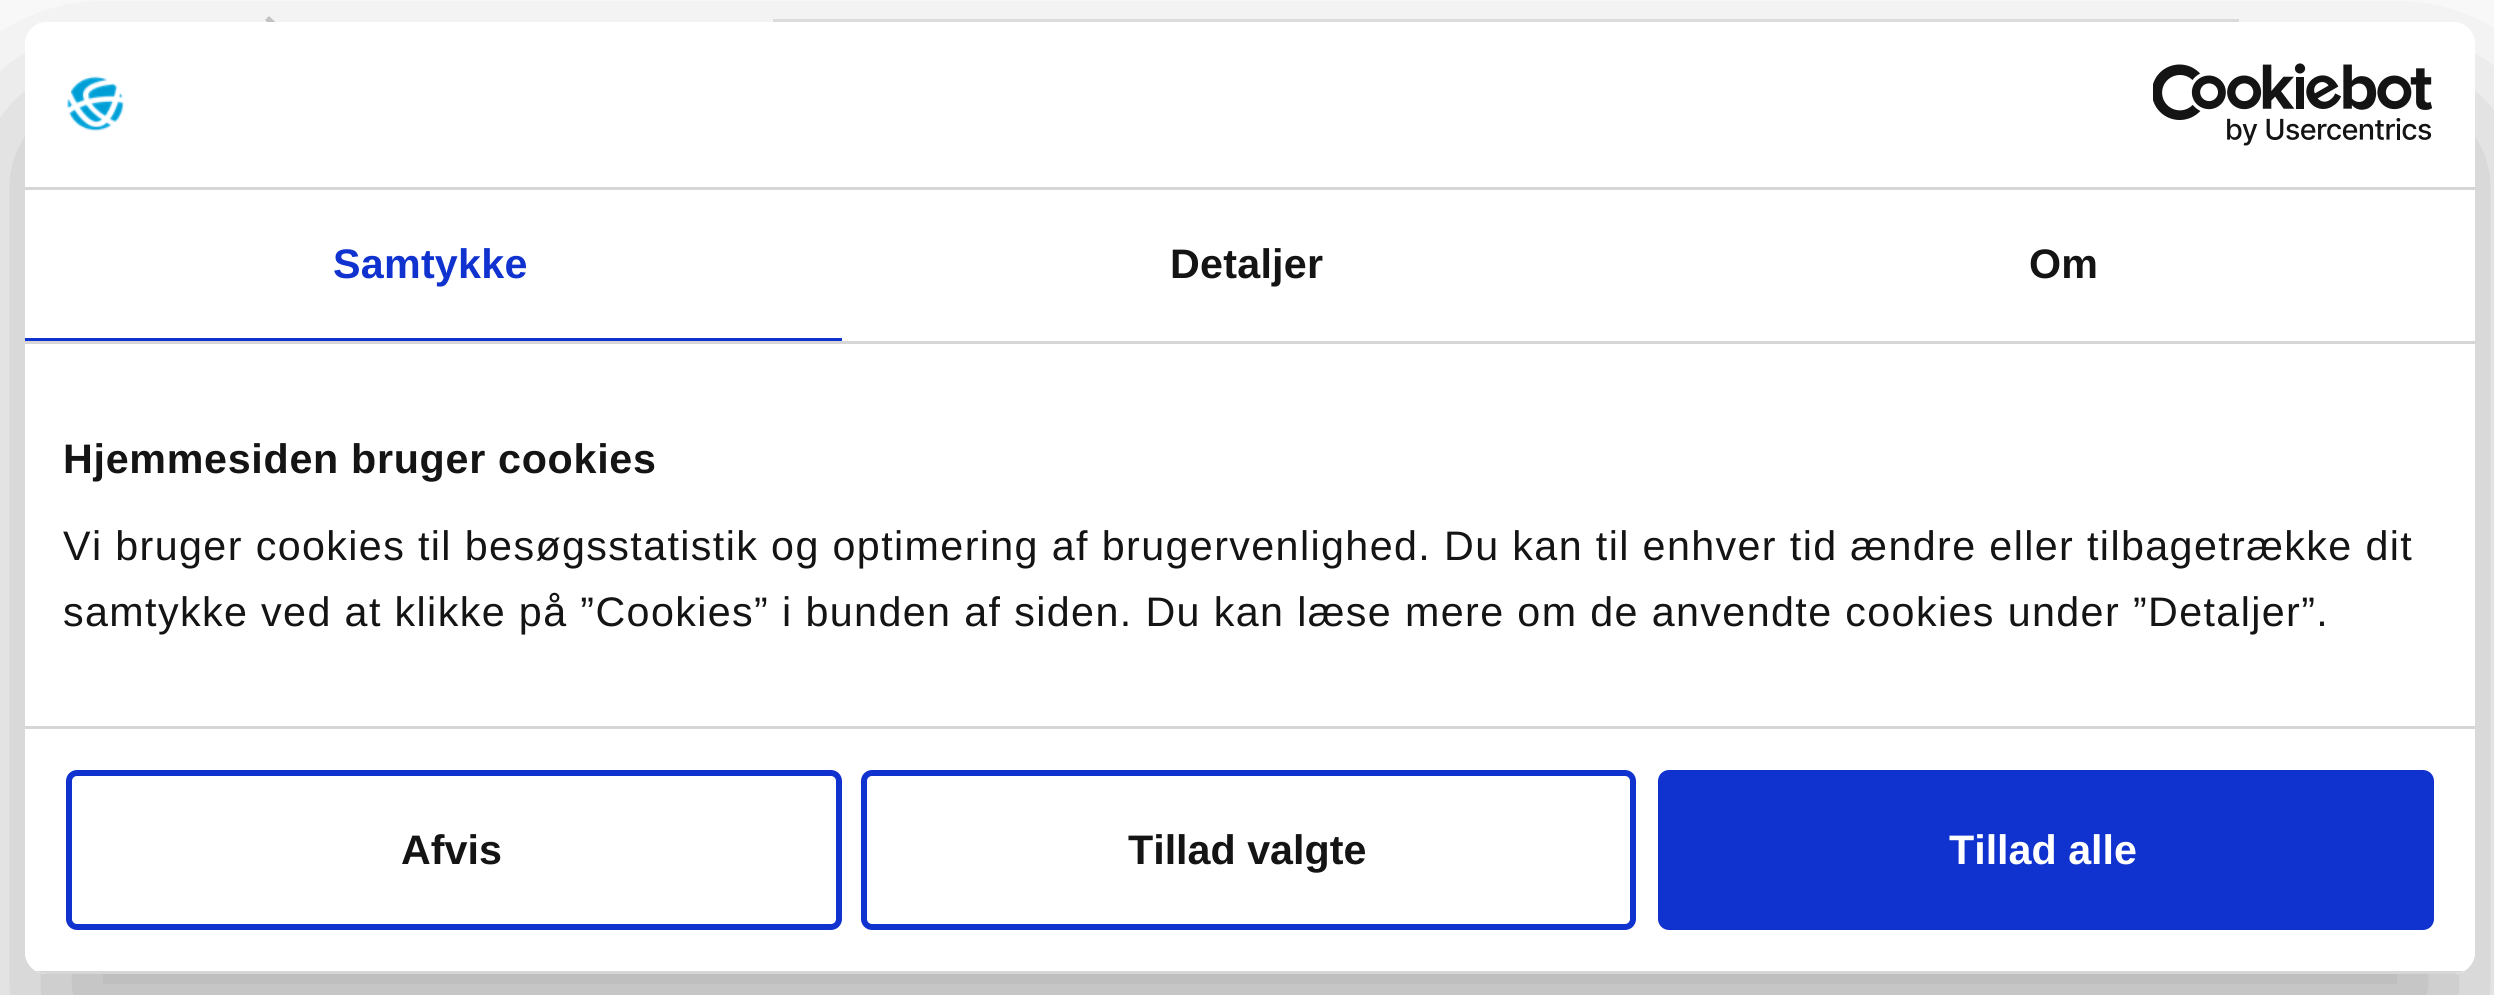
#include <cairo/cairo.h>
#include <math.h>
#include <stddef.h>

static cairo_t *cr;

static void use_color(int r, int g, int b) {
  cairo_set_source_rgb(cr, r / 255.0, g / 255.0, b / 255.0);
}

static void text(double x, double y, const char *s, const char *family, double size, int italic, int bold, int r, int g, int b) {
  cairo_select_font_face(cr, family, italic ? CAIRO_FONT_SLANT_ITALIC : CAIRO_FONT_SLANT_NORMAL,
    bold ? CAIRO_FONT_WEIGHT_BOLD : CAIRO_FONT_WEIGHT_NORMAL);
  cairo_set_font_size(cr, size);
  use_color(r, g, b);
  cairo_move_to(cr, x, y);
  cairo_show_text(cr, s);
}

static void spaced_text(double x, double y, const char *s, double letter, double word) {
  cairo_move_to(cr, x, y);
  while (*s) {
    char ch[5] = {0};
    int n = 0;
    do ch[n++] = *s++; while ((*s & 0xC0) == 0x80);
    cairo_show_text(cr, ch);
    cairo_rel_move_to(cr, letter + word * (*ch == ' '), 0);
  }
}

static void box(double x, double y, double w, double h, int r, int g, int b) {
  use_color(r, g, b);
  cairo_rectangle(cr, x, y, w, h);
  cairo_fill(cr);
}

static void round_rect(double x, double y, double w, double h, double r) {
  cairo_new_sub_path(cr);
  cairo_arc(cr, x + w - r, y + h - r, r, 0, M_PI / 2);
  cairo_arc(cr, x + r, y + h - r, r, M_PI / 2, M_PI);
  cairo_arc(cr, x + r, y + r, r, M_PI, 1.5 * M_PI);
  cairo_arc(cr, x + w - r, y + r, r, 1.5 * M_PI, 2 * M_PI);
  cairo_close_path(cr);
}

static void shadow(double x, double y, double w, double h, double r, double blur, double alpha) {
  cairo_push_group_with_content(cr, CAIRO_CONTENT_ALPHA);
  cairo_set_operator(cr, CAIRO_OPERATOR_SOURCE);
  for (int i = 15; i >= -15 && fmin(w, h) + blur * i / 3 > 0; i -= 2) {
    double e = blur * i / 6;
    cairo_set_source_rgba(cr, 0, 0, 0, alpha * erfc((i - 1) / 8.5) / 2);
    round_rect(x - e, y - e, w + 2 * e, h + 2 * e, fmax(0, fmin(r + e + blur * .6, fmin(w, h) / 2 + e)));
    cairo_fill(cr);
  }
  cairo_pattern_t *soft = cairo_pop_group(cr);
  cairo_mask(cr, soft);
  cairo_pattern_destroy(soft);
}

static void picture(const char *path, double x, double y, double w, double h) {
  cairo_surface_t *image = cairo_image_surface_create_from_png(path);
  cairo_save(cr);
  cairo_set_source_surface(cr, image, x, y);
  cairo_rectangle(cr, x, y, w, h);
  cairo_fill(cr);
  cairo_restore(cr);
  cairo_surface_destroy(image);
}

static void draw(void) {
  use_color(255, 255, 255);
  cairo_paint(cr);
  use_color(204, 204, 204);
  cairo_new_path(cr);
  cairo_move_to(cr, 280.5, 27);
  cairo_line_to(cr, 269, 38.5);
  cairo_line_to(cr, 265, 34.5);
  cairo_line_to(cr, 272.5, 27);
  cairo_line_to(cr, 265, 20);
  cairo_line_to(cr, 269, 16);
  cairo_close_path(cr);
  cairo_fill(cr);
  box(773, 19, 1466, 3, 230, 230, 230);
  cairo_save(cr);
  cairo_set_fill_rule(cr, CAIRO_FILL_RULE_EVEN_ODD);
  cairo_new_path(cr);
  cairo_move_to(cr, 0, 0);
  cairo_line_to(cr, 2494, 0);
  cairo_line_to(cr, 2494, 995);
  cairo_line_to(cr, 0, 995);
  cairo_close_path(cr);
  cairo_move_to(cr, 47, 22);
  cairo_line_to(cr, 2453, 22);
  cairo_curve_to(cr, 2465, 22, 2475, 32, 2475, 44);
  cairo_line_to(cr, 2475, 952);
  cairo_curve_to(cr, 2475, 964, 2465, 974, 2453, 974);
  cairo_line_to(cr, 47, 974);
  cairo_curve_to(cr, 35, 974, 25, 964, 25, 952);
  cairo_line_to(cr, 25, 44);
  cairo_curve_to(cr, 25, 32, 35, 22, 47, 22);
  cairo_close_path(cr);
  cairo_clip(cr);
  use_color(0, 0, 0);
  shadow(25, 110, 2450, 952, 22, 93.5, 0.3);
  cairo_restore(cr);
  use_color(255, 255, 255);
  round_rect(25, 22, 2450, 952, 22);
  cairo_fill(cr);
  box(25, 187, 2450, 3, 214, 214, 214);
  picture("img_01.png", 67, 76, 57, 55);
  picture("img_02.png", 2153, 63, 280, 83);
  box(25, 341, 2450, 3, 214, 214, 214);
  box(25, 338, 817, 3, 16, 50, 207);
  box(25, 726, 2450, 3, 214, 214, 214);
  cairo_save(cr);
  round_rect(25, 22, 2450, 952, 22);
  cairo_clip(cr);
  box(36, 971, 2428, 3, 214, 214, 214);
  cairo_restore(cr);
  round_rect(69, 773, 770, 154, 8);
  use_color(16, 50, 207);
  cairo_set_line_width(cr, 6);
  cairo_stroke(cr);
  round_rect(864, 773, 769, 154, 8);
  cairo_stroke(cr);
  round_rect(1661, 773, 770, 154, 8);
  cairo_fill_preserve(cr);
  cairo_stroke(cr);
  cairo_select_font_face(cr, "Liberation Sans", CAIRO_FONT_SLANT_NORMAL, CAIRO_FONT_WEIGHT_BOLD);
  cairo_set_font_size(cr, 41.25);
  spaced_text(333, 278, "Samtykke", 0.25, 0);
  use_color(20, 20, 20);
  spaced_text(1170, 278, "Detaljer", 0.25, 0);
  spaced_text(2029, 278, "Om", 0.25, 0);
  spaced_text(63, 473, "Hjemmesiden bruger cookies", 0.7, 0);
  cairo_select_font_face(cr, "Liberation Sans", CAIRO_FONT_SLANT_NORMAL, CAIRO_FONT_WEIGHT_NORMAL);
  spaced_text(63, 560, "Vi bruger cookies til besøgsstatistik og optimering af brugervenlighed. Du kan til enhver tid ændre eller tilbagetrække dit", 1.38, 0);
  spaced_text(63, 626, "samtykke ved at klikke på ”Cookies” i bunden af siden. Du kan læse mere om de anvendte cookies under ”Detaljer”.", 1.38, 0);
  text(401, 864, "Afvis", "Liberation Sans", 41.25, 0, 1, 20, 20, 20);
  text(1128, 864, "Tillad valgte", "Liberation Sans", 41.25, 0, 1, 20, 20, 20);
  text(1949, 864, "Tillad alle", "Liberation Sans", 41.25, 0, 1, 255, 255, 255);
}

int main(void) {
  cairo_surface_t *surface = cairo_image_surface_create(CAIRO_FORMAT_RGB24, 2494, 995);
  cr = cairo_create(surface);
  cairo_font_options_t *options = cairo_font_options_create();
  cairo_font_options_set_hint_metrics(options, CAIRO_HINT_METRICS_OFF);
  cairo_font_options_set_hint_style(options, CAIRO_HINT_STYLE_NONE);
  cairo_set_font_options(cr, options);
  cairo_set_miter_limit(cr, 4);
  draw();
  cairo_surface_write_to_png(surface, "out.png");
  cairo_font_options_destroy(options);
  cairo_destroy(cr);
  cairo_surface_destroy(surface);
  return 0;
}
